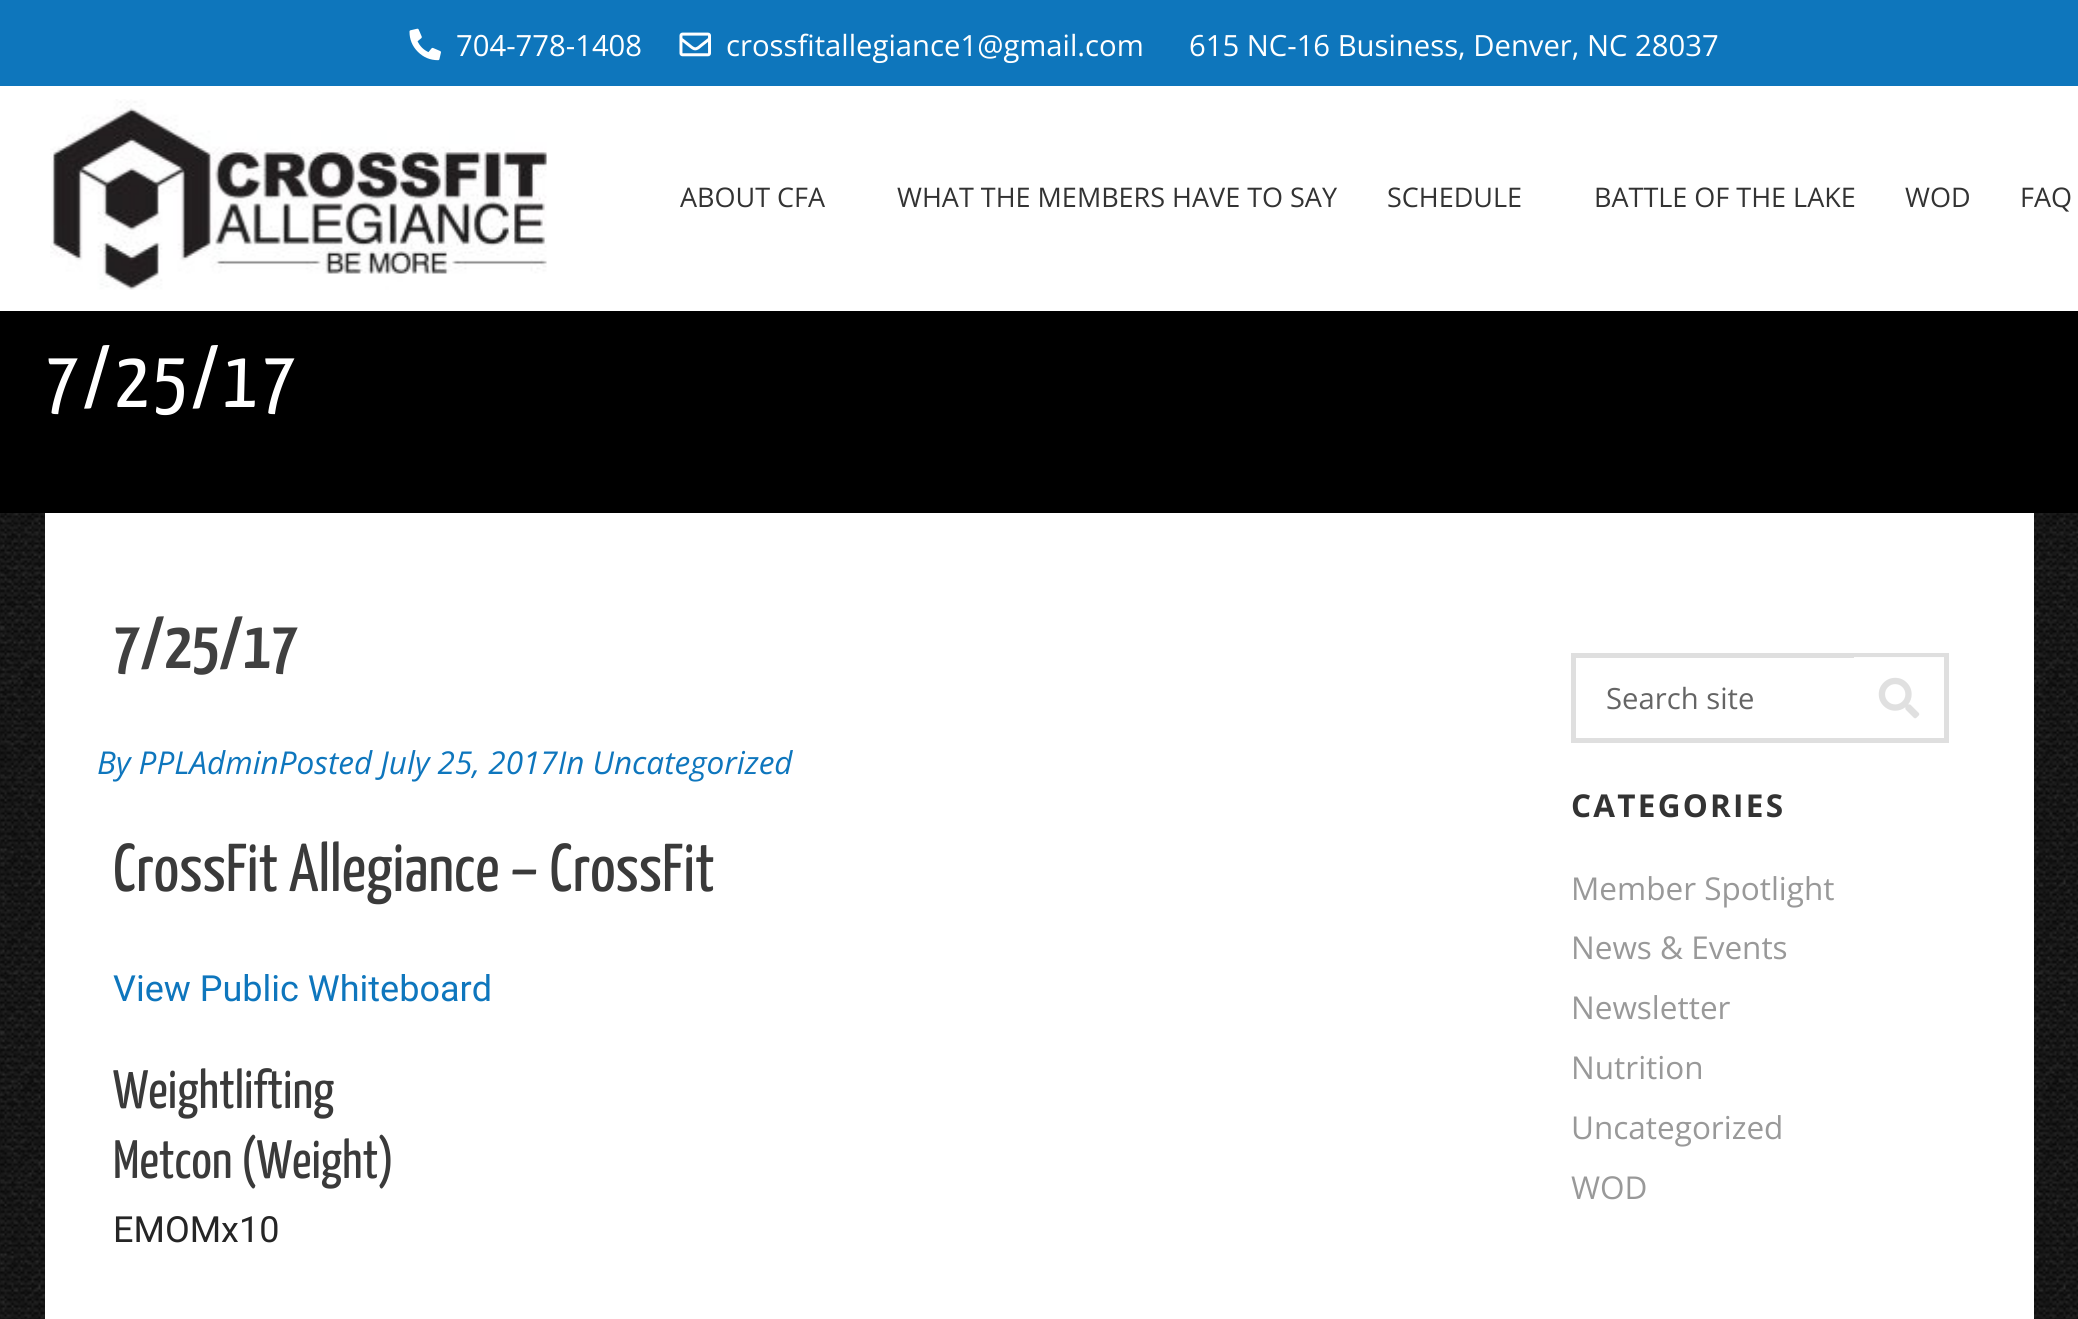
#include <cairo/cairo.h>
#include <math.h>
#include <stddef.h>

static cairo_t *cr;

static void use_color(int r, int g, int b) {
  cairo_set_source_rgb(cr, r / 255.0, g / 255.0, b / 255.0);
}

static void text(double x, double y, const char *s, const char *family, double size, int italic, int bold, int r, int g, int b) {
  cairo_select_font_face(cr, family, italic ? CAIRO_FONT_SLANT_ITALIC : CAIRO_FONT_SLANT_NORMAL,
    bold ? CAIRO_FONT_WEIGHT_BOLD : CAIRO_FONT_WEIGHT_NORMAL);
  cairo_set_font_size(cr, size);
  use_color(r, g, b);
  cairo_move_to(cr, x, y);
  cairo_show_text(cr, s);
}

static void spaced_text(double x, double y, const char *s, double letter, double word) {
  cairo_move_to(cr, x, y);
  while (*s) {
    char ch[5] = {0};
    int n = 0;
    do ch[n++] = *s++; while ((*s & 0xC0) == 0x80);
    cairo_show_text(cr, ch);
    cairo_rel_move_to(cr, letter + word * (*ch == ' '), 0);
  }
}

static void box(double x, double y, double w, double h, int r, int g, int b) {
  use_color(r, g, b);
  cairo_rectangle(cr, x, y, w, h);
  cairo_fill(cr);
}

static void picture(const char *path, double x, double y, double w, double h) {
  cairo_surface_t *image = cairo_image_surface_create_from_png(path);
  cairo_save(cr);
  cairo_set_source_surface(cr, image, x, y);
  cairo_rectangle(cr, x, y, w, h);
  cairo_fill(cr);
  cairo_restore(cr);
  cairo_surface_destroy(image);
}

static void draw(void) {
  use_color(255, 255, 255);
  cairo_paint(cr);
  picture("img_01.png", 0, 513, 2078, 806);
  box(0, 0, 2078, 86, 14, 118, 188);
  picture("img_02.png", 409, 28, 32, 33);
  picture("img_03.png", 679, 32, 32, 25);
  picture("img_04.png", 50, 99, 497, 191);
  box(45, 513, 1989, 806, 255, 255, 255);
  box(0, 311, 2078, 202, 0, 0, 0);
  cairo_rectangle(cr, 1573.5, 655.5, 373, 85);
  use_color(223, 223, 223);
  cairo_set_line_width(cr, 5);
  cairo_stroke(cr);
  box(1854, 657, 90, 1, 253, 253, 253);
  picture("img_05.png", 1878, 677, 42, 42);
  text(456, 56, "704-778-1408", "Open Sans", 29.25, 0, 0, 255, 255, 255);
  text(726, 56, "crossfitallegiance1@gmail.com", "Open Sans", 29.25, 0, 0, 255, 255, 255);
  text(1189, 56, "615 NC-16 Business, Denver, NC 28037", "Open Sans", 29.25, 0, 0, 255, 255, 255);
  text(680, 207, "ABOUT CFA", "Open Sans", 27, 0, 0, 51, 51, 51);
  text(897, 207, "WHAT THE MEMBERS HAVE TO SAY", "Open Sans", 27, 0, 0, 51, 51, 51);
  text(1387, 207, "SCHEDULE", "Open Sans", 27, 0, 0, 51, 51, 51);
  text(1594, 207, "BATTLE OF THE LAKE", "Open Sans", 27, 0, 0, 51, 51, 51);
  text(1905, 207, "WOD", "Open Sans", 27, 0, 0, 51, 51, 51);
  text(2020, 207, "FAQ", "Open Sans", 27, 0, 0, 51, 51, 51);
  cairo_select_font_face(cr, "Yanone Kaffeesatz", CAIRO_FONT_SLANT_NORMAL, CAIRO_FONT_WEIGHT_NORMAL);
  cairo_set_font_size(cr, 81);
  use_color(255, 255, 255);
  spaced_text(45, 407, "7/25/17", 4.5, 0);
  text(113, 668, "7/25/17", "Yanone Kaffeesatz SemiBold", 67.5, 0, 0, 64, 64, 64);
  text(97, 774, "By PPLAdminPosted July 25, 2017In Uncategorized", "Open Sans", 31.5, 1, 0, 14, 118, 189);
  text(113, 891, "CrossFit Allegiance – CrossFit", "Yanone Kaffeesatz", 67.5, 0, 0, 58, 58, 58);
  text(113, 1001, "View Public Whiteboard", "Roboto", 36, 0, 0, 14, 118, 189);
  text(113, 1108, "Weightlifting", "Yanone Kaffeesatz", 54, 0, 0, 58, 58, 58);
  text(113, 1178, "Metcon (Weight)", "Yanone Kaffeesatz", 54, 0, 0, 58, 58, 58);
  text(113, 1242, "EMOMx10", "Roboto", 36, 0, 0, 37, 37, 37);
  text(1606, 709, "Search site", "Open Sans", 29.25, 0, 0, 101, 101, 101);
  cairo_select_font_face(cr, "Open Sans", CAIRO_FONT_SLANT_NORMAL, CAIRO_FONT_WEIGHT_BOLD);
  cairo_set_font_size(cr, 31.5);
  use_color(51, 51, 51);
  spaced_text(1571, 817, "CATEGORIES", 2.25, 0);
  text(1571, 900, "Member Spotlight", "Open Sans", 31.5, 0, 0, 153, 153, 153);
  text(1571, 959, "News & Events", "Open Sans", 31.5, 0, 0, 153, 153, 153);
  text(1571, 1019, "Newsletter", "Open Sans", 31.5, 0, 0, 153, 153, 153);
  text(1571, 1079, "Nutrition", "Open Sans", 31.5, 0, 0, 153, 153, 153);
  text(1571, 1139, "Uncategorized", "Open Sans", 31.5, 0, 0, 153, 153, 153);
  text(1571, 1199, "WOD", "Open Sans", 31.5, 0, 0, 153, 153, 153);
}

int main(void) {
  cairo_surface_t *surface = cairo_image_surface_create(CAIRO_FORMAT_RGB24, 2078, 1319);
  cr = cairo_create(surface);
  cairo_font_options_t *options = cairo_font_options_create();
  cairo_font_options_set_hint_metrics(options, CAIRO_HINT_METRICS_OFF);
  cairo_font_options_set_hint_style(options, CAIRO_HINT_STYLE_NONE);
  cairo_set_font_options(cr, options);
  cairo_set_miter_limit(cr, 4);
  draw();
  cairo_surface_write_to_png(surface, "out.png");
  cairo_font_options_destroy(options);
  cairo_destroy(cr);
  cairo_surface_destroy(surface);
  return 0;
}
